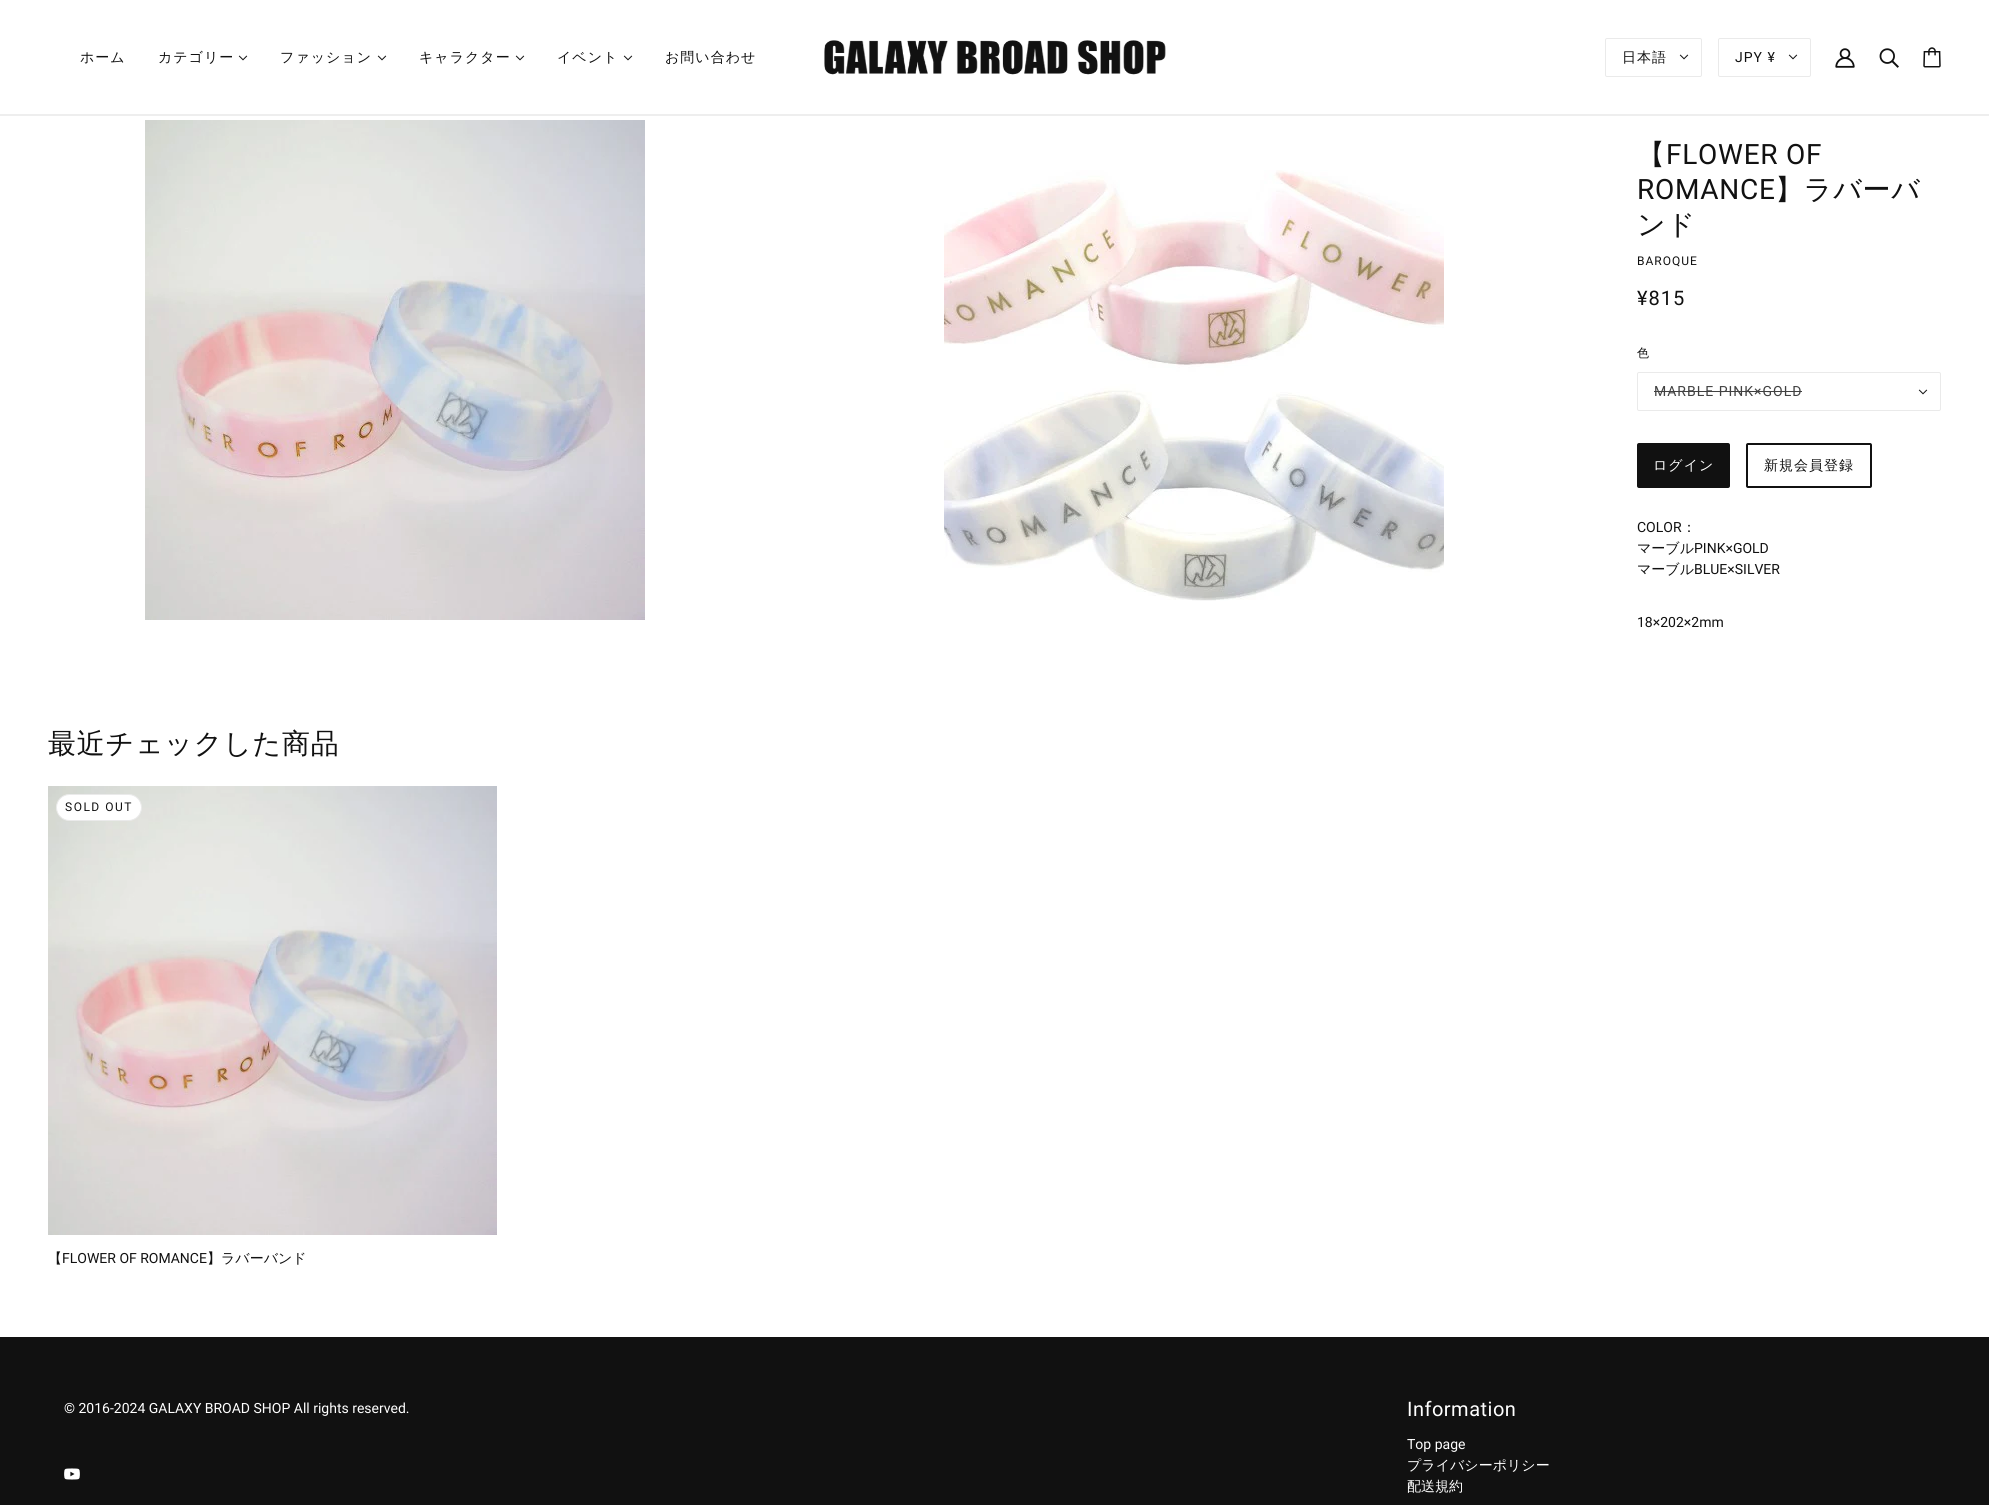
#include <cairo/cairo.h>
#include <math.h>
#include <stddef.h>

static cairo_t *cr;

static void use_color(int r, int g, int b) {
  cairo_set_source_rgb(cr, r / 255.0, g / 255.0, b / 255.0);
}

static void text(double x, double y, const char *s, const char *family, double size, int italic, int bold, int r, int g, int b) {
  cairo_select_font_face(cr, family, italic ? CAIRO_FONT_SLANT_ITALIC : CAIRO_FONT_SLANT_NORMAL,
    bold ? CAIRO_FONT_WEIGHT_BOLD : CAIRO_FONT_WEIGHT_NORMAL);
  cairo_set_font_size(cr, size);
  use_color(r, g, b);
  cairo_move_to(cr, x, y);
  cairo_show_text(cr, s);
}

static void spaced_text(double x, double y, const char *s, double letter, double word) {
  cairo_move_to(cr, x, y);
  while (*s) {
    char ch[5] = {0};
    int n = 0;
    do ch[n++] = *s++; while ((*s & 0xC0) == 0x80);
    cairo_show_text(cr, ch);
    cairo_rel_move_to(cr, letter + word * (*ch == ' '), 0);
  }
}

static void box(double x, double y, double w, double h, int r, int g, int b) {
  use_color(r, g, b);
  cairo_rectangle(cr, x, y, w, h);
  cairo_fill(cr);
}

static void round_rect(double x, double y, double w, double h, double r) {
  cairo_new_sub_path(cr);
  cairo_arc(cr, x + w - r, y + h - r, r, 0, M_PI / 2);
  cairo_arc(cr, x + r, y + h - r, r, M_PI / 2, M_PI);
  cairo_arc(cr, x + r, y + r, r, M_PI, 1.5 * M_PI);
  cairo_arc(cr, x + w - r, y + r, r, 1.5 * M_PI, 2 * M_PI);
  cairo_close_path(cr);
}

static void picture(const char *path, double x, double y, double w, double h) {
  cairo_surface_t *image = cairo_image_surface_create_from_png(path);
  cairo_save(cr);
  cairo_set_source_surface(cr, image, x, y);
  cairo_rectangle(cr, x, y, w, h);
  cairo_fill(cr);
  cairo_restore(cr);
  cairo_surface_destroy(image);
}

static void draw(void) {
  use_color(255, 255, 255);
  cairo_paint(cr);
  box(0, 114, 1989, 2, 238, 238, 238);
  picture("img_01.png", 238, 55, 10, 6);
  picture("img_01.png", 377, 55, 10, 6);
  picture("img_01.png", 515, 55, 10, 6);
  picture("img_01.png", 623, 55, 10, 6);
  picture("img_02.png", 824, 40, 342, 35);
  round_rect(1605.5, 38.5, 96, 38, 1.5);
  use_color(234, 234, 234);
  cairo_set_line_width(cr, 1);
  cairo_stroke(cr);
  picture("img_01.png", 1679, 54, 10, 6);
  round_rect(1718.5, 38.5, 92, 38, 1.5);
  cairo_stroke(cr);
  picture("img_01.png", 1788, 54, 10, 6);
  picture("img_03.png", 1835, 48, 20, 20);
  picture("img_04.png", 1879, 48, 20, 20);
  picture("img_05.png", 1923, 47, 18, 21);
  picture("img_06.png", 145, 120, 500, 500);
  picture("img_07.png", 944, 170, 500, 431);
  round_rect(1637.5, 372.5, 303, 38, 1.5);
  cairo_stroke(cr);
  box(1654, 391, 148, 1, 65, 65, 65);
  picture("img_01.png", 1918, 389, 10, 6);
  use_color(17, 17, 17);
  round_rect(1637, 443, 93, 45, 2);
  cairo_fill(cr);
  round_rect(1747, 444, 124, 43, 1);
  cairo_set_line_width(cr, 2);
  cairo_stroke(cr);
  picture("img_08.png", 48, 786, 449, 449);
  use_color(255, 255, 255);
  round_rect(56.5, 794.5, 85, 26, 13);
  cairo_fill_preserve(cr);
  use_color(234, 234, 234);
  cairo_set_line_width(cr, 1);
  cairo_stroke(cr);
  box(0, 1337, 1989, 168, 17, 17, 17);
  picture("img_09.png", 64, 1468, 16, 12);
  cairo_select_font_face(cr, "WenQuanYi Zen Hei Medium", CAIRO_FONT_SLANT_NORMAL, CAIRO_FONT_WEIGHT_NORMAL);
  cairo_set_font_size(cr, 14);
  spaced_text(80, 62, "ホーム", 1, 0);
  spaced_text(158, 62, "カテゴリー", 1, 0);
  spaced_text(280, 62, "ファッション", 1, 0);
  spaced_text(419, 62, "キャラクター", 1, 0);
  spaced_text(557, 62, "イベント", 1, 0);
  spaced_text(665, 62, "お問い合わせ", 1, 0);
  spaced_text(1622, 62, "日本語", 1, 0);
  cairo_select_font_face(cr, "Roboto", CAIRO_FONT_SLANT_NORMAL, CAIRO_FONT_WEIGHT_NORMAL);
  spaced_text(1735, 62, "JPY ¥", 1, 0);
  cairo_select_font_face(cr, "WenQuanYi Zen Hei Medium", CAIRO_FONT_SLANT_NORMAL, CAIRO_FONT_WEIGHT_NORMAL);
  cairo_set_font_size(cr, 28);
  spaced_text(1637, 164, "【", 0.75, 0);
  cairo_select_font_face(cr, "Roboto", CAIRO_FONT_SLANT_NORMAL, CAIRO_FONT_WEIGHT_NORMAL);
  spaced_text(1666, 164, "FLOWER OF", 0.75, 0);
  spaced_text(1637, 199, "ROMANCE", 0.75, 0);
  cairo_select_font_face(cr, "WenQuanYi Zen Hei Medium", CAIRO_FONT_SLANT_NORMAL, CAIRO_FONT_WEIGHT_NORMAL);
  spaced_text(1775, 199, "】ラバーバ", 0.75, 0);
  spaced_text(1637, 234, "ンド", 0.75, 0);
  cairo_select_font_face(cr, "Roboto", CAIRO_FONT_SLANT_NORMAL, CAIRO_FONT_WEIGHT_NORMAL);
  cairo_set_font_size(cr, 12);
  spaced_text(1637, 265, "BAROQUE", 1, 0);
  cairo_set_font_size(cr, 20);
  spaced_text(1637, 305, "¥815", 1, 0);
  cairo_select_font_face(cr, "WenQuanYi Zen Hei Medium", CAIRO_FONT_SLANT_NORMAL, CAIRO_FONT_WEIGHT_NORMAL);
  cairo_set_font_size(cr, 12);
  spaced_text(1637, 357, "色", 1, 0);
  cairo_select_font_face(cr, "Roboto", CAIRO_FONT_SLANT_NORMAL, CAIRO_FONT_WEIGHT_NORMAL);
  cairo_set_font_size(cr, 14);
  use_color(65, 65, 65);
  spaced_text(1654, 396, "MARBLE PINK×GOLD", 1, 0);
  cairo_select_font_face(cr, "WenQuanYi Zen Hei Medium", CAIRO_FONT_SLANT_NORMAL, CAIRO_FONT_WEIGHT_NORMAL);
  use_color(255, 255, 255);
  spaced_text(1653, 470, "ログイン", 1, 0);
  use_color(17, 17, 17);
  spaced_text(1764, 470, "新規会員登録", 1, 0);
  text(1637, 532, "COLOR", "Roboto", 14, 0, 0, 17, 17, 17);
  text(1682, 532, "：", "WenQuanYi Zen Hei Medium", 14, 0, 0, 17, 17, 17);
  text(1637, 553, "マーブル", "WenQuanYi Zen Hei Medium", 14, 0, 0, 17, 17, 17);
  text(1694, 553, "PINK×GOLD", "Roboto", 14, 0, 0, 17, 17, 17);
  text(1637, 574, "マーブル", "WenQuanYi Zen Hei Medium", 14, 0, 0, 17, 17, 17);
  text(1694, 574, "BLUE×SILVER", "Roboto", 14, 0, 0, 17, 17, 17);
  text(1637, 627, "18×202×2mm", "Roboto", 14, 0, 0, 17, 17, 17);
  cairo_select_font_face(cr, "WenQuanYi Zen Hei Medium", CAIRO_FONT_SLANT_NORMAL, CAIRO_FONT_WEIGHT_NORMAL);
  cairo_set_font_size(cr, 28);
  spaced_text(48, 753, "最近チェックした商品", 0.75, 0);
  cairo_select_font_face(cr, "Roboto", CAIRO_FONT_SLANT_NORMAL, CAIRO_FONT_WEIGHT_NORMAL);
  cairo_set_font_size(cr, 12);
  spaced_text(65, 811, "SOLD OUT", 1.5, 0);
  text(48, 1263, "【", "WenQuanYi Zen Hei Medium", 14, 0, 0, 17, 17, 17);
  text(62, 1263, "FLOWER OF ROMANCE", "Roboto", 14, 0, 0, 17, 17, 17);
  text(207, 1263, "】ラバーバンド", "WenQuanYi Zen Hei Medium", 14, 0, 0, 17, 17, 17);
  text(64, 1413, "© 2016-2024 GALAXY BROAD SHOP All rights reserved.", "Roboto", 14, 0, 0, 255, 255, 255);
  cairo_set_font_size(cr, 20);
  spaced_text(1407, 1416, "Information", 0.5, 0);
  text(1407, 1449, "Top page", "Roboto", 14, 0, 0, 255, 255, 255);
  text(1407, 1470, "プライバシーポリシー", "WenQuanYi Zen Hei Medium", 14, 0, 0, 255, 255, 255);
  text(1407, 1491, "配送規約", "WenQuanYi Zen Hei Medium", 14, 0, 0, 255, 255, 255);
}

int main(void) {
  cairo_surface_t *surface = cairo_image_surface_create(CAIRO_FORMAT_RGB24, 1989, 1505);
  cr = cairo_create(surface);
  cairo_font_options_t *options = cairo_font_options_create();
  cairo_font_options_set_hint_metrics(options, CAIRO_HINT_METRICS_OFF);
  cairo_font_options_set_hint_style(options, CAIRO_HINT_STYLE_NONE);
  cairo_set_font_options(cr, options);
  cairo_set_miter_limit(cr, 4);
  draw();
  cairo_surface_write_to_png(surface, "out.png");
  cairo_font_options_destroy(options);
  cairo_destroy(cr);
  cairo_surface_destroy(surface);
  return 0;
}
